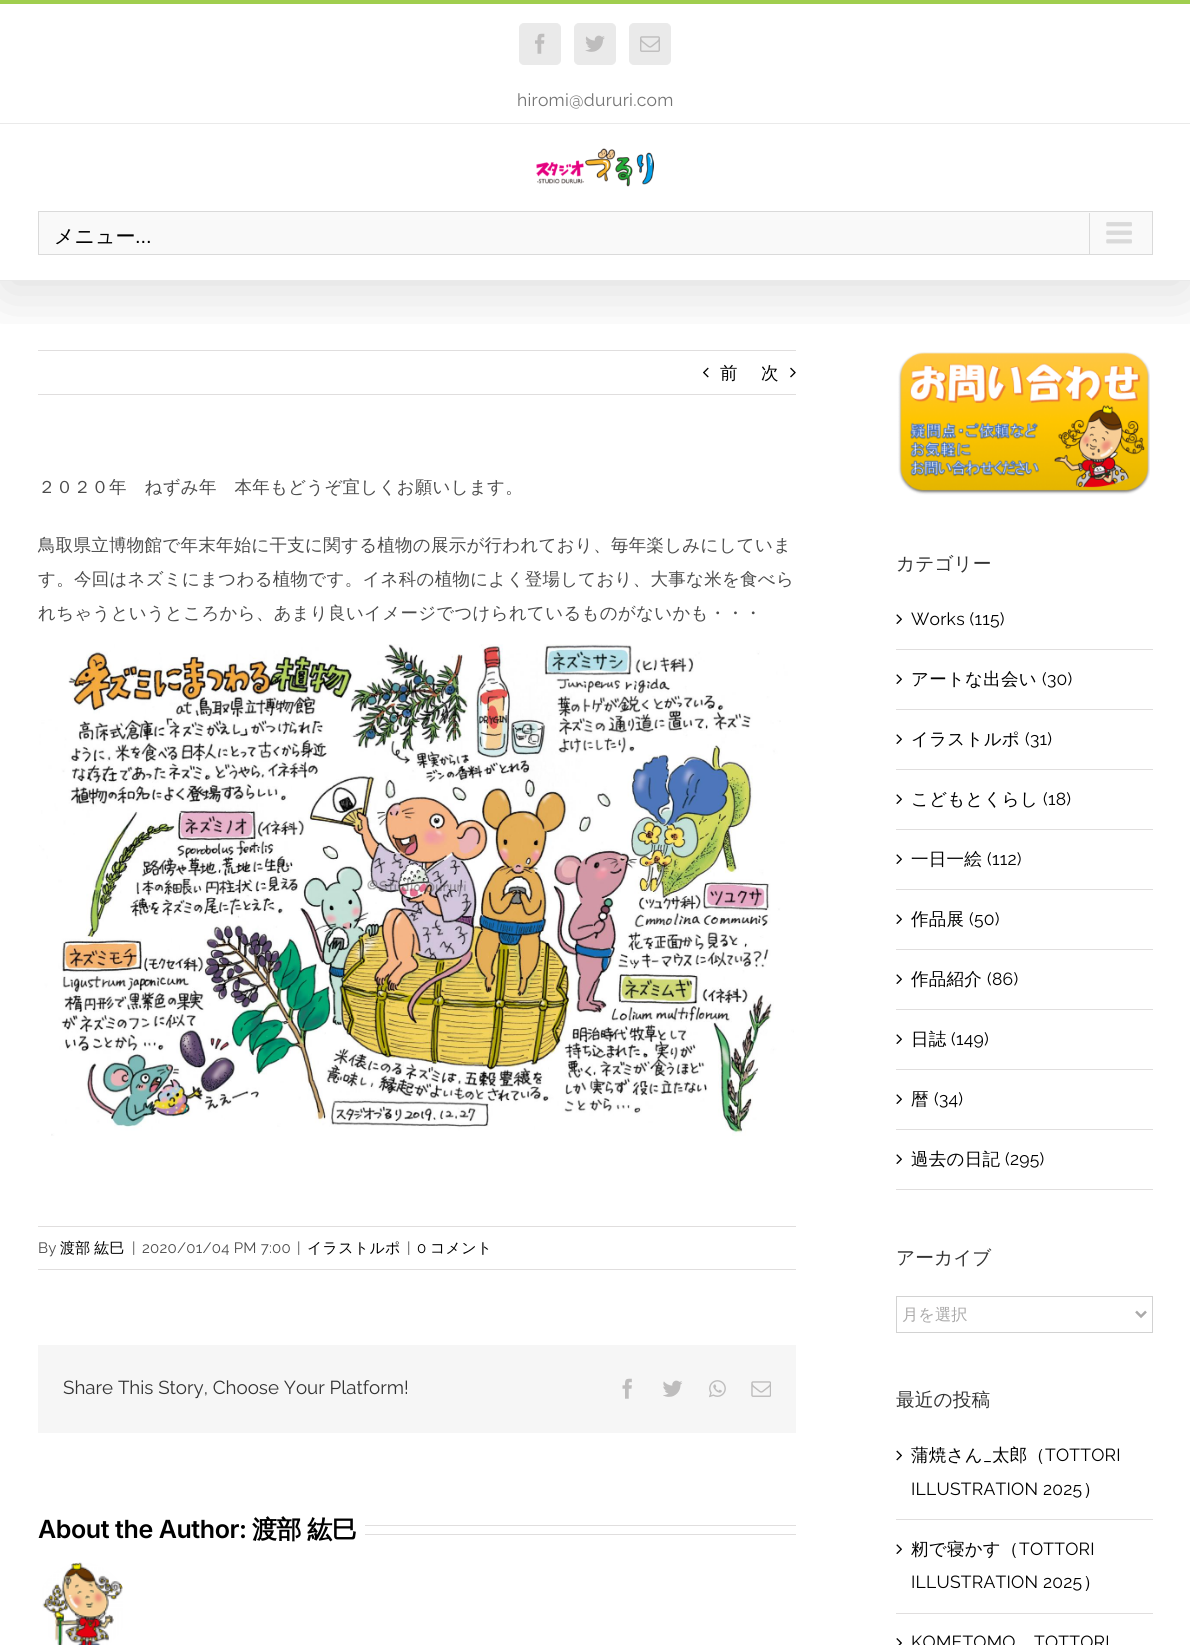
#include <cairo/cairo.h>
#include <math.h>
#include <stddef.h>

static cairo_t *cr;

static void use_color(int r, int g, int b) {
  cairo_set_source_rgb(cr, r / 255.0, g / 255.0, b / 255.0);
}

static void text(double x, double y, const char *s, const char *family, double size, int italic, int bold, int r, int g, int b) {
  cairo_select_font_face(cr, family, italic ? CAIRO_FONT_SLANT_ITALIC : CAIRO_FONT_SLANT_NORMAL,
    bold ? CAIRO_FONT_WEIGHT_BOLD : CAIRO_FONT_WEIGHT_NORMAL);
  cairo_set_font_size(cr, size);
  use_color(r, g, b);
  cairo_move_to(cr, x, y);
  cairo_show_text(cr, s);
}

static void spaced_text(double x, double y, const char *s, double letter, double word) {
  cairo_move_to(cr, x, y);
  while (*s) {
    char ch[5] = {0};
    int n = 0;
    do ch[n++] = *s++; while ((*s & 0xC0) == 0x80);
    cairo_show_text(cr, ch);
    cairo_rel_move_to(cr, letter + word * (*ch == ' '), 0);
  }
}

static void box(double x, double y, double w, double h, int r, int g, int b) {
  use_color(r, g, b);
  cairo_rectangle(cr, x, y, w, h);
  cairo_fill(cr);
}

static void round_rect(double x, double y, double w, double h, double r) {
  cairo_new_sub_path(cr);
  cairo_arc(cr, x + w - r, y + h - r, r, 0, M_PI / 2);
  cairo_arc(cr, x + r, y + h - r, r, M_PI / 2, M_PI);
  cairo_arc(cr, x + r, y + r, r, M_PI, 1.5 * M_PI);
  cairo_arc(cr, x + w - r, y + r, r, 1.5 * M_PI, 2 * M_PI);
  cairo_close_path(cr);
}

static void shadow(double x, double y, double w, double h, double r, double blur, double alpha) {
  cairo_push_group_with_content(cr, CAIRO_CONTENT_ALPHA);
  cairo_set_operator(cr, CAIRO_OPERATOR_SOURCE);
  for (int i = 15; i >= -15 && fmin(w, h) + blur * i / 3 > 0; i -= 2) {
    double e = blur * i / 6;
    cairo_set_source_rgba(cr, 0, 0, 0, alpha * erfc((i - 1) / 8.5) / 2);
    round_rect(x - e, y - e, w + 2 * e, h + 2 * e, fmax(0, fmin(r + e + blur * .6, fmin(w, h) / 2 + e)));
    cairo_fill(cr);
  }
  cairo_pattern_t *soft = cairo_pop_group(cr);
  cairo_mask(cr, soft);
  cairo_pattern_destroy(soft);
}

static void picture(const char *path, double x, double y, double w, double h) {
  cairo_surface_t *image = cairo_image_surface_create_from_png(path);
  cairo_save(cr);
  cairo_set_source_surface(cr, image, x, y);
  cairo_rectangle(cr, x, y, w, h);
  cairo_fill(cr);
  cairo_restore(cr);
  cairo_surface_destroy(image);
}

static void draw(void) {
  use_color(255, 255, 255);
  cairo_paint(cr);
  box(38, 350, 758, 1, 224, 222, 222);
  picture("img_06.png", 703, 367, 6, 11);
  picture("img_07.png", 790, 367, 6, 11);
  picture("img_14.png", 898, 352, 252, 143);
  cairo_save(cr);
  cairo_rectangle(cr, 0, 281, 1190, 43);
  cairo_clip(cr);
  use_color(0, 0, 0);
  shadow(3, 15, 1185, 276, 0, 31, 0.14);
  cairo_restore(cr);
  box(0, 0, 1190, 4, 160, 206, 78);
  box(0, 123, 1190, 1, 234, 234, 234);
  round_rect(519.5, 23.5, 41, 41, 4.5);
  cairo_fill_preserve(cr);
  cairo_set_line_width(cr, 1);
  cairo_stroke(cr);
  picture("img_01.png", 535, 33, 10, 21);
  round_rect(574.5, 23.5, 41, 41, 4.5);
  cairo_fill_preserve(cr);
  cairo_stroke(cr);
  picture("img_02.png", 585, 35, 20, 17);
  round_rect(629.5, 23.5, 41, 41, 4.5);
  cairo_fill_preserve(cr);
  cairo_stroke(cr);
  picture("img_03.png", 640, 36, 20, 16);
  box(0, 280, 1190, 1, 234, 234, 234);
  picture("img_04.png", 536, 148, 118, 39);
  use_color(249, 249, 249);
  cairo_rectangle(cr, 38.5, 211.5, 1114, 43);
  cairo_fill_preserve(cr);
  use_color(218, 218, 218);
  cairo_stroke(cr);
  box(1089, 213, 1, 41, 218, 218, 218);
  picture("img_05.png", 1106, 222, 26, 22);
  box(38, 394, 758, 1, 224, 222, 222);
  picture("img_08.png", 39, 644, 755, 492);
  box(38, 1226, 758, 1, 224, 222, 222);
  box(38, 1269, 758, 1, 224, 222, 222);
  box(38, 1345, 758, 88, 246, 246, 246);
  picture("img_09.png", 622, 1378, 10, 21);
  picture("img_10.png", 663, 1380, 20, 17);
  picture("img_11.png", 709, 1380, 17, 18);
  picture("img_12.png", 751, 1381, 20, 16);
  box(365, 1525, 431, 1, 224, 222, 222);
  box(365, 1534, 431, 1, 224, 222, 222);
  picture("img_13.png", 42, 1562, 81, 83);
  box(896, 649, 257, 1, 224, 222, 222);
  picture("img_15.png", 896, 614, 6, 10);
  box(896, 709, 257, 1, 224, 222, 222);
  picture("img_15.png", 896, 674, 6, 10);
  box(896, 769, 257, 1, 224, 222, 222);
  picture("img_15.png", 896, 734, 6, 10);
  box(896, 829, 257, 1, 224, 222, 222);
  picture("img_15.png", 896, 794, 6, 10);
  box(896, 889, 257, 1, 224, 222, 222);
  picture("img_15.png", 896, 854, 6, 10);
  box(896, 949, 257, 1, 224, 222, 222);
  picture("img_15.png", 896, 914, 6, 10);
  box(896, 1009, 257, 1, 224, 222, 222);
  picture("img_15.png", 896, 974, 6, 10);
  box(896, 1069, 257, 1, 224, 222, 222);
  picture("img_15.png", 896, 1034, 6, 10);
  box(896, 1129, 257, 1, 224, 222, 222);
  picture("img_15.png", 896, 1094, 6, 10);
  box(896, 1189, 257, 1, 224, 222, 222);
  picture("img_15.png", 896, 1154, 6, 10);
  cairo_rectangle(cr, 896.5, 1296.5, 256, 36);
  use_color(210, 210, 210);
  cairo_stroke(cr);
  cairo_new_path(cr);
  cairo_move_to(cr, 1136, 1311.5);
  cairo_line_to(cr, 1141, 1316.5);
  cairo_line_to(cr, 1146, 1311.5);
  use_color(170, 169, 169);
  cairo_set_line_width(cr, 2.5);
  cairo_stroke(cr);
  box(896, 1519, 257, 1, 224, 222, 222);
  picture("img_16.png", 896, 1450, 6, 11);
  box(896, 1613, 257, 1, 224, 222, 222);
  picture("img_15.png", 896, 1544, 6, 10);
  picture("img_17.png", 896, 1638, 6, 7);
  cairo_select_font_face(cr, "Raleway", CAIRO_FONT_SLANT_NORMAL, CAIRO_FONT_WEIGHT_NORMAL);
  cairo_set_font_size(cr, 17.5);
  use_color(116, 116, 116);
  spaced_text(517, 106, "hiromi@dururi.com", 0.25, 0);
  text(54, 243, "メニュー", "WenQuanYi Zen Hei Medium", 20, 0, 0, 0, 0, 0);
  text(135, 243, "...", "Liberation Sans", 20, 0, 0, 0, 0, 0);
  cairo_select_font_face(cr, "WenQuanYi Zen Hei Medium", CAIRO_FONT_SLANT_NORMAL, CAIRO_FONT_WEIGHT_NORMAL);
  cairo_set_font_size(cr, 17.5);
  spaced_text(720, 379, "前", 0.25, 0);
  spaced_text(761, 379, "次", 0.25, 0);
  use_color(76, 76, 76);
  spaced_text(38, 493, "２０２０年　ねずみ年　本年もどうぞ宜しくお願いします。", 0.25, 0);
  spaced_text(38, 551, "鳥取県立博物館で年末年始に干支に関する植物の展示が行われており、毎年楽しみにしていま", 0.25, 0);
  spaced_text(38, 585, "す。今回はネズミにまつわる植物です。イネ科の植物によく登場しており、大事な米を食べら", 0.25, 0);
  spaced_text(38, 619, "れちゃうというところから、あまり良いイメージでつけられているものがないかも・・・", 0.25, 0);
  cairo_select_font_face(cr, "Raleway", CAIRO_FONT_SLANT_NORMAL, CAIRO_FONT_WEIGHT_NORMAL);
  cairo_set_font_size(cr, 15);
  spaced_text(38, 1253, "By", 0.25, 0);
  cairo_select_font_face(cr, "WenQuanYi Zen Hei Medium", CAIRO_FONT_SLANT_NORMAL, CAIRO_FONT_WEIGHT_NORMAL);
  use_color(0, 0, 0);
  spaced_text(60, 1253, "渡部 紘巳", 0.25, -1);
  cairo_select_font_face(cr, "Raleway", CAIRO_FONT_SLANT_NORMAL, CAIRO_FONT_WEIGHT_NORMAL);
  use_color(76, 76, 76);
  spaced_text(132, 1253, "|", 0.25, 0);
  spaced_text(142, 1253, "2020/01/04 PM 7:00", 0.25, 0);
  spaced_text(297, 1253, "|", 0.25, 0);
  cairo_select_font_face(cr, "WenQuanYi Zen Hei Medium", CAIRO_FONT_SLANT_NORMAL, CAIRO_FONT_WEIGHT_NORMAL);
  use_color(0, 0, 0);
  spaced_text(307, 1253, "イラストルポ", 0.25, 0);
  cairo_select_font_face(cr, "Raleway", CAIRO_FONT_SLANT_NORMAL, CAIRO_FONT_WEIGHT_NORMAL);
  use_color(76, 76, 76);
  spaced_text(407, 1253, "|", 0.25, 0);
  use_color(0, 0, 0);
  spaced_text(417, 1253, "0", 0.25, 0);
  cairo_select_font_face(cr, "WenQuanYi Zen Hei Medium", CAIRO_FONT_SLANT_NORMAL, CAIRO_FONT_WEIGHT_NORMAL);
  spaced_text(430, 1253, "コメント", 0.25, 0);
  text(63, 1394, "Share This Story, Choose Your Platform!", "Raleway", 18.75, 0, 0, 51, 51, 51);
  cairo_select_font_face(cr, "Inter SemiBold", CAIRO_FONT_SLANT_NORMAL, CAIRO_FONT_WEIGHT_NORMAL);
  cairo_set_font_size(cr, 25);
  use_color(0, 0, 0);
  spaced_text(38, 1538, "About the Author:", -0.4, 0);
  cairo_select_font_face(cr, "WenQuanYi Zen Hei", CAIRO_FONT_SLANT_NORMAL, CAIRO_FONT_WEIGHT_BOLD);
  spaced_text(252, 1538, "渡部 紘巳", -0.4, -1);
  text(896, 570, "カテゴリー", "WenQuanYi Zen Hei Medium", 18.75, 0, 0, 51, 51, 51);
  cairo_select_font_face(cr, "Raleway", CAIRO_FONT_SLANT_NORMAL, CAIRO_FONT_WEIGHT_NORMAL);
  cairo_set_font_size(cr, 17.5);
  use_color(0, 0, 0);
  spaced_text(911, 625, "Works (115)", 0.25, 0);
  cairo_select_font_face(cr, "WenQuanYi Zen Hei Medium", CAIRO_FONT_SLANT_NORMAL, CAIRO_FONT_WEIGHT_NORMAL);
  spaced_text(911, 685, "アートな出会い", 0.25, 0);
  cairo_select_font_face(cr, "Raleway", CAIRO_FONT_SLANT_NORMAL, CAIRO_FONT_WEIGHT_NORMAL);
  spaced_text(1042, 685, "(30)", 0.25, 0);
  cairo_select_font_face(cr, "WenQuanYi Zen Hei Medium", CAIRO_FONT_SLANT_NORMAL, CAIRO_FONT_WEIGHT_NORMAL);
  spaced_text(911, 745, "イラストルポ", 0.25, 0);
  cairo_select_font_face(cr, "Raleway", CAIRO_FONT_SLANT_NORMAL, CAIRO_FONT_WEIGHT_NORMAL);
  spaced_text(1025, 745, "(31)", 0.25, 0);
  cairo_select_font_face(cr, "WenQuanYi Zen Hei Medium", CAIRO_FONT_SLANT_NORMAL, CAIRO_FONT_WEIGHT_NORMAL);
  spaced_text(911, 805, "こどもとくらし", 0.25, 0);
  cairo_select_font_face(cr, "Raleway", CAIRO_FONT_SLANT_NORMAL, CAIRO_FONT_WEIGHT_NORMAL);
  spaced_text(1043, 805, "(18)", 0.25, 0);
  cairo_select_font_face(cr, "WenQuanYi Zen Hei Medium", CAIRO_FONT_SLANT_NORMAL, CAIRO_FONT_WEIGHT_NORMAL);
  spaced_text(911, 865, "一日一絵", 0.25, 0);
  cairo_select_font_face(cr, "Raleway", CAIRO_FONT_SLANT_NORMAL, CAIRO_FONT_WEIGHT_NORMAL);
  spaced_text(987, 865, "(112)", 0.25, 0);
  cairo_select_font_face(cr, "WenQuanYi Zen Hei Medium", CAIRO_FONT_SLANT_NORMAL, CAIRO_FONT_WEIGHT_NORMAL);
  spaced_text(911, 925, "作品展", 0.25, 0);
  cairo_select_font_face(cr, "Raleway", CAIRO_FONT_SLANT_NORMAL, CAIRO_FONT_WEIGHT_NORMAL);
  spaced_text(969, 925, "(50)", 0.25, 0);
  cairo_select_font_face(cr, "WenQuanYi Zen Hei Medium", CAIRO_FONT_SLANT_NORMAL, CAIRO_FONT_WEIGHT_NORMAL);
  spaced_text(911, 985, "作品紹介", 0.25, 0);
  cairo_select_font_face(cr, "Raleway", CAIRO_FONT_SLANT_NORMAL, CAIRO_FONT_WEIGHT_NORMAL);
  spaced_text(987, 985, "(86)", 0.25, 0);
  cairo_select_font_face(cr, "WenQuanYi Zen Hei Medium", CAIRO_FONT_SLANT_NORMAL, CAIRO_FONT_WEIGHT_NORMAL);
  spaced_text(911, 1045, "日誌", 0.25, 0);
  cairo_select_font_face(cr, "Raleway", CAIRO_FONT_SLANT_NORMAL, CAIRO_FONT_WEIGHT_NORMAL);
  spaced_text(951, 1045, "(149)", 0.25, 0);
  cairo_select_font_face(cr, "WenQuanYi Zen Hei Medium", CAIRO_FONT_SLANT_NORMAL, CAIRO_FONT_WEIGHT_NORMAL);
  spaced_text(911, 1105, "暦", 0.25, 0);
  cairo_select_font_face(cr, "Raleway", CAIRO_FONT_SLANT_NORMAL, CAIRO_FONT_WEIGHT_NORMAL);
  spaced_text(934, 1105, "(34)", 0.25, 0);
  cairo_select_font_face(cr, "WenQuanYi Zen Hei Medium", CAIRO_FONT_SLANT_NORMAL, CAIRO_FONT_WEIGHT_NORMAL);
  spaced_text(911, 1165, "過去の日記", 0.25, 0);
  cairo_select_font_face(cr, "Raleway", CAIRO_FONT_SLANT_NORMAL, CAIRO_FONT_WEIGHT_NORMAL);
  spaced_text(1005, 1165, "(295)", 0.25, 0);
  text(896, 1264, "アーカイブ", "WenQuanYi Zen Hei Medium", 18.75, 0, 0, 51, 51, 51);
  text(902, 1320, "月を選択", "WenQuanYi Zen Hei Medium", 16.25, 0, 0, 170, 169, 169);
  text(896, 1406, "最近の投稿", "WenQuanYi Zen Hei Medium", 18.75, 0, 0, 51, 51, 51);
  cairo_set_font_size(cr, 17.5);
  use_color(0, 0, 0);
  spaced_text(911, 1461, "蒲焼さん", 0.25, 0);
  spaced_text(992, 1461, "太郎（", 0.25, 0);
  cairo_select_font_face(cr, "Raleway", CAIRO_FONT_SLANT_NORMAL, CAIRO_FONT_WEIGHT_NORMAL);
  spaced_text(1045, 1461, "TOTTORI", 0.25, 0);
  spaced_text(983, 1461, "_", 0.25, 0);
  spaced_text(911, 1495, "ILLUSTRATION 2025", 0.25, 0);
  cairo_select_font_face(cr, "WenQuanYi Zen Hei Medium", CAIRO_FONT_SLANT_NORMAL, CAIRO_FONT_WEIGHT_NORMAL);
  spaced_text(1083, 1495, "）", 0.25, 0);
  spaced_text(911, 1555, "籾で寝かす（", 0.25, 0);
  cairo_select_font_face(cr, "Raleway", CAIRO_FONT_SLANT_NORMAL, CAIRO_FONT_WEIGHT_NORMAL);
  spaced_text(1019, 1555, "TOTTORI", 0.25, 0);
  spaced_text(911, 1588, "ILLUSTRATION 2025", 0.25, 0);
  cairo_select_font_face(cr, "WenQuanYi Zen Hei Medium", CAIRO_FONT_SLANT_NORMAL, CAIRO_FONT_WEIGHT_NORMAL);
  spaced_text(1083, 1588, "）", 0.25, 0);
  cairo_select_font_face(cr, "Raleway", CAIRO_FONT_SLANT_NORMAL, CAIRO_FONT_WEIGHT_NORMAL);
  spaced_text(911, 1648, "KOMETOMO", 0.25, 0);
  spaced_text(1034, 1648, "TOTTORI", 0.25, 0);
}

int main(void) {
  cairo_surface_t *surface = cairo_image_surface_create(CAIRO_FORMAT_RGB24, 1190, 1645);
  cr = cairo_create(surface);
  cairo_font_options_t *options = cairo_font_options_create();
  cairo_font_options_set_hint_metrics(options, CAIRO_HINT_METRICS_OFF);
  cairo_font_options_set_hint_style(options, CAIRO_HINT_STYLE_NONE);
  cairo_set_font_options(cr, options);
  cairo_set_miter_limit(cr, 4);
  draw();
  cairo_surface_write_to_png(surface, "out.png");
  cairo_font_options_destroy(options);
  cairo_destroy(cr);
  cairo_surface_destroy(surface);
  return 0;
}
